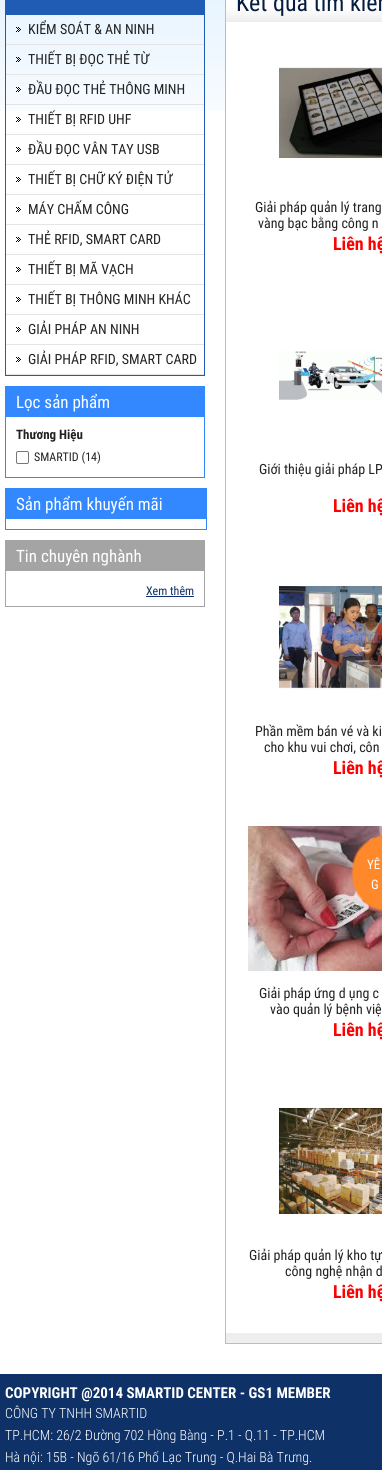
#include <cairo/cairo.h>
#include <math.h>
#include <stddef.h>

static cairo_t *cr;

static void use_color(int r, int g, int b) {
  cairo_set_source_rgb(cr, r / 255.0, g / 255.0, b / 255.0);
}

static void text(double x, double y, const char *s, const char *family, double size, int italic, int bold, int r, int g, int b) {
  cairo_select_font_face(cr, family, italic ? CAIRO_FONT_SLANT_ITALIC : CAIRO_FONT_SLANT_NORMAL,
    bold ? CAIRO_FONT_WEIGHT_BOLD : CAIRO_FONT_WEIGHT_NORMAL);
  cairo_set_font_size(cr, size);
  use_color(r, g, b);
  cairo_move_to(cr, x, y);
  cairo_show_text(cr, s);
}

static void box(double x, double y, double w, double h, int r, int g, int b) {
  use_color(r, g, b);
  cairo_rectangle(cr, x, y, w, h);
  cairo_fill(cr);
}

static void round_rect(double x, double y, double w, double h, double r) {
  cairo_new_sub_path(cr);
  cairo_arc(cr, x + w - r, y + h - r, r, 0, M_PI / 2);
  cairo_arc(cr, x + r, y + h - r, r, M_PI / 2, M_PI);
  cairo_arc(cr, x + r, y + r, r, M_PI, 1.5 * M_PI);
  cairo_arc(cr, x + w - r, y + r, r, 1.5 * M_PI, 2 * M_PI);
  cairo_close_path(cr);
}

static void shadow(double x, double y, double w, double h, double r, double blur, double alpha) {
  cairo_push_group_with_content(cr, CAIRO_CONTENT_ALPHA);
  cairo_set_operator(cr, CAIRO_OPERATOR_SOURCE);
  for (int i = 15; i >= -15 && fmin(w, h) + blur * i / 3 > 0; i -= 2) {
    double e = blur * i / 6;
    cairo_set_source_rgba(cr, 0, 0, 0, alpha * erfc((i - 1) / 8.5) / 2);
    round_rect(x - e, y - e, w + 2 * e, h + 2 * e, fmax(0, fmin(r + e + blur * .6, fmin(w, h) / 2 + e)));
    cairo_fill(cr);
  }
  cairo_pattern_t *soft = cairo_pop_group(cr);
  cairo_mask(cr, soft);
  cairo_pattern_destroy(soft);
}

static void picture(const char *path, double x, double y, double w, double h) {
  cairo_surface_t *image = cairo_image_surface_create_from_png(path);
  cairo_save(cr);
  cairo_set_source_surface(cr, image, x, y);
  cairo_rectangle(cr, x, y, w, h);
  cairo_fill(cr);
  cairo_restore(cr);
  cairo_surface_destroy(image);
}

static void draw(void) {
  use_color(255, 255, 255);
  cairo_paint(cr);
  picture("img_01.png", 0, 0, 225, 111);
  cairo_rectangle(cr, 5.5, -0.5, 199, 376);
  use_color(32, 92, 179);
  cairo_set_line_width(cr, 1);
  cairo_stroke(cr);
  box(6, 0, 198, 15, 32, 92, 179);
  box(6, 44, 198, 1, 229, 229, 229);
  picture("img_02.png", 16, 27, 5, 5);
  box(6, 74, 198, 1, 229, 229, 229);
  picture("img_03.png", 16, 57, 5, 5);
  box(6, 104, 198, 1, 229, 229, 229);
  picture("img_04.png", 16, 87, 5, 5);
  box(6, 134, 198, 1, 229, 229, 229);
  picture("img_05.png", 16, 117, 5, 5);
  box(6, 164, 198, 1, 229, 229, 229);
  picture("img_05.png", 16, 147, 5, 5);
  box(6, 194, 198, 1, 229, 229, 229);
  picture("img_05.png", 16, 177, 5, 5);
  box(6, 224, 198, 1, 229, 229, 229);
  picture("img_05.png", 16, 207, 5, 5);
  box(6, 254, 198, 1, 229, 229, 229);
  picture("img_05.png", 16, 237, 5, 5);
  box(6, 284, 198, 1, 229, 229, 229);
  picture("img_05.png", 16, 267, 5, 5);
  box(6, 314, 198, 1, 229, 229, 229);
  picture("img_05.png", 16, 297, 5, 5);
  box(6, 344, 198, 1, 229, 229, 229);
  picture("img_05.png", 16, 327, 5, 5);
  box(6, 374, 198, 1, 229, 229, 229);
  picture("img_05.png", 16, 357, 5, 5);
  cairo_rectangle(cr, 5.5, 386.5, 199, 91);
  use_color(51, 136, 255);
  cairo_stroke(cr);
  box(6, 387, 198, 30, 51, 136, 255);
  round_rect(16.5, 451.5, 12, 12, 1.5);
  use_color(118, 118, 118);
  cairo_stroke(cr);
  cairo_rectangle(cr, 5.5, 488.5, 201, 41);
  use_color(51, 136, 255);
  cairo_stroke(cr);
  box(6, 489, 200, 30, 51, 136, 255);
  cairo_rectangle(cr, 5.5, 540.5, 199, 66);
  use_color(164, 164, 164);
  cairo_stroke(cr);
  box(6, 541, 198, 30, 164, 164, 164);
  box(146, 596, 48, 1, 14, 49, 103);
  cairo_rectangle(cr, 225.5, -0.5, 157, 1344);
  use_color(189, 188, 189);
  cairo_stroke(cr);
  picture("img_06.png", 226, 0, 156, 22);
  picture("img_07.png", 279, 67, 103, 92);
  picture("img_08.png", 279, 351, 103, 49);
  picture("img_09.png", 279, 584, 103, 106);
  picture("img_10.png", 248, 826, 134, 145);
  picture("img_11.png", 279, 1107, 103, 108);
  box(226, 1333, 156, 10, 238, 238, 238);
  use_color(255, 136, 42);
  shadow(353, 836, 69, 74, 37, 1, 1);
  shadow(353, 836, 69, 74, 37, 1, 1);
  box(0, 1374, 382, 96, 14, 49, 103);
  text(28, 34, "KIỂM SOÁT & AN NINH", "Roboto Condensed", 14, 0, 0, 34, 34, 34);
  text(28, 64, "THIẾT BỊ ĐỌC THẺ TỪ", "Roboto Condensed", 14, 0, 0, 34, 34, 34);
  text(28, 94, "ĐẦU ĐỌC THẺ THÔNG MINH", "Roboto Condensed", 14, 0, 0, 34, 34, 34);
  text(28, 124, "THIẾT BỊ RFID UHF", "Roboto Condensed", 14, 0, 0, 34, 34, 34);
  text(28, 154, "ĐẦU ĐỌC VÂN TAY USB", "Roboto Condensed", 14, 0, 0, 34, 34, 34);
  text(28, 184, "THIẾT BỊ CHỮ KÝ ĐIỆN TỬ", "Roboto Condensed", 14, 0, 0, 34, 34, 34);
  text(28, 214, "MÁY CHẤM CÔNG", "Roboto Condensed", 14, 0, 0, 34, 34, 34);
  text(28, 244, "THẺ RFID, SMART CARD", "Roboto Condensed", 14, 0, 0, 34, 34, 34);
  text(28, 274, "THIẾT BỊ MÃ VẠCH", "Roboto Condensed", 14, 0, 0, 34, 34, 34);
  text(28, 304, "THIẾT BỊ THÔNG MINH KHÁC", "Roboto Condensed", 14, 0, 0, 34, 34, 34);
  text(28, 334, "GIẢI PHÁP AN NINH", "Roboto Condensed", 14, 0, 0, 34, 34, 34);
  text(28, 364, "GIẢI PHÁP RFID, SMART CARD", "Roboto Condensed", 14, 0, 0, 34, 34, 34);
  text(16, 408, "Lọc sản phẩm", "Roboto Condensed", 17, 0, 0, 255, 255, 255);
  text(16, 439, "Thương Hiệu", "Roboto Condensed", 13, 0, 1, 34, 34, 34);
  text(34, 461, "SMARTID (14)", "Roboto Condensed", 12, 0, 0, 34, 34, 34);
  text(16, 510, "Sản phẩm khuyến mãi", "Roboto Condensed", 17, 0, 0, 255, 255, 255);
  text(16, 562, "Tin chuyên nghành", "Roboto Condensed", 17, 0, 0, 255, 255, 255);
  text(146, 595, "Xem thêm", "Roboto Condensed", 12, 0, 0, 14, 49, 103);
  text(236, 11, "Kết quả tìm kiếm", "Roboto Condensed", 24, 0, 0, 5, 29, 65);
  text(255, 212, "Giải pháp quản lý trang", "Roboto Condensed", 14, 0, 0, 34, 34, 34);
  text(258, 228, "vàng bạc bằng công n", "Roboto Condensed", 14, 0, 0, 34, 34, 34);
  text(333, 250, "Liên hệ", "Roboto Condensed", 18, 0, 1, 255, 0, 0);
  text(259, 474, "Giới thiệu giải pháp LP", "Roboto Condensed", 14, 0, 0, 34, 34, 34);
  text(333, 512, "Liên hệ", "Roboto Condensed", 18, 0, 1, 255, 0, 0);
  text(255, 736, "Phần mềm bán vé và ki", "Roboto Condensed", 14, 0, 0, 34, 34, 34);
  text(264, 752, "cho khu vui chơi, côn", "Roboto Condensed", 14, 0, 0, 34, 34, 34);
  text(333, 774, "Liên hệ", "Roboto Condensed", 18, 0, 1, 255, 0, 0);
  text(259, 998, "Giải pháp ứng d ụng c", "Roboto Condensed", 14, 0, 0, 34, 34, 34);
  text(270, 1014, "vào quản lý bệnh việ", "Roboto Condensed", 14, 0, 0, 34, 34, 34);
  text(333, 1036, "Liên hệ", "Roboto Condensed", 18, 0, 1, 255, 0, 0);
  text(249, 1260, "Giải pháp quản lý kho tự", "Roboto Condensed", 14, 0, 0, 34, 34, 34);
  text(285, 1276, "công nghệ nhận d", "Roboto Condensed", 14, 0, 0, 34, 34, 34);
  text(333, 1298, "Liên hệ", "Roboto Condensed", 18, 0, 1, 255, 0, 0);
  text(367, 869, "YÊ", "Roboto Condensed", 13, 0, 0, 255, 255, 255);
  text(371, 889, "G", "Roboto Condensed", 13, 0, 0, 255, 255, 255);
  text(5, 1398, "COPYRIGHT @2014 SMARTID CENTER - GS1 MEMBER", "Roboto Condensed", 15, 0, 1, 255, 255, 255);
  text(5, 1418, "CÔNG TY TNHH SMARTID", "Roboto Condensed Light", 14, 0, 0, 255, 255, 255);
  text(5, 1440, "TP.HCM: 26/2 Đường 702 Hồng Bàng - P.1 - Q.11 - TP.HCM", "Roboto Condensed Light", 14, 0, 0, 255, 255, 255);
  text(5, 1462, "Hà nội: 15B - Ngõ 61/16 Phố Lạc Trung - Q.Hai Bà Trưng.", "Roboto Condensed Light", 14, 0, 0, 255, 255, 255);
}

int main(void) {
  cairo_surface_t *surface = cairo_image_surface_create(CAIRO_FORMAT_RGB24, 382, 1470);
  cr = cairo_create(surface);
  cairo_font_options_t *options = cairo_font_options_create();
  cairo_font_options_set_hint_metrics(options, CAIRO_HINT_METRICS_OFF);
  cairo_font_options_set_hint_style(options, CAIRO_HINT_STYLE_NONE);
  cairo_set_font_options(cr, options);
  cairo_set_miter_limit(cr, 4);
  draw();
  cairo_surface_write_to_png(surface, "out.png");
  cairo_font_options_destroy(options);
  cairo_destroy(cr);
  cairo_surface_destroy(surface);
  return 0;
}
